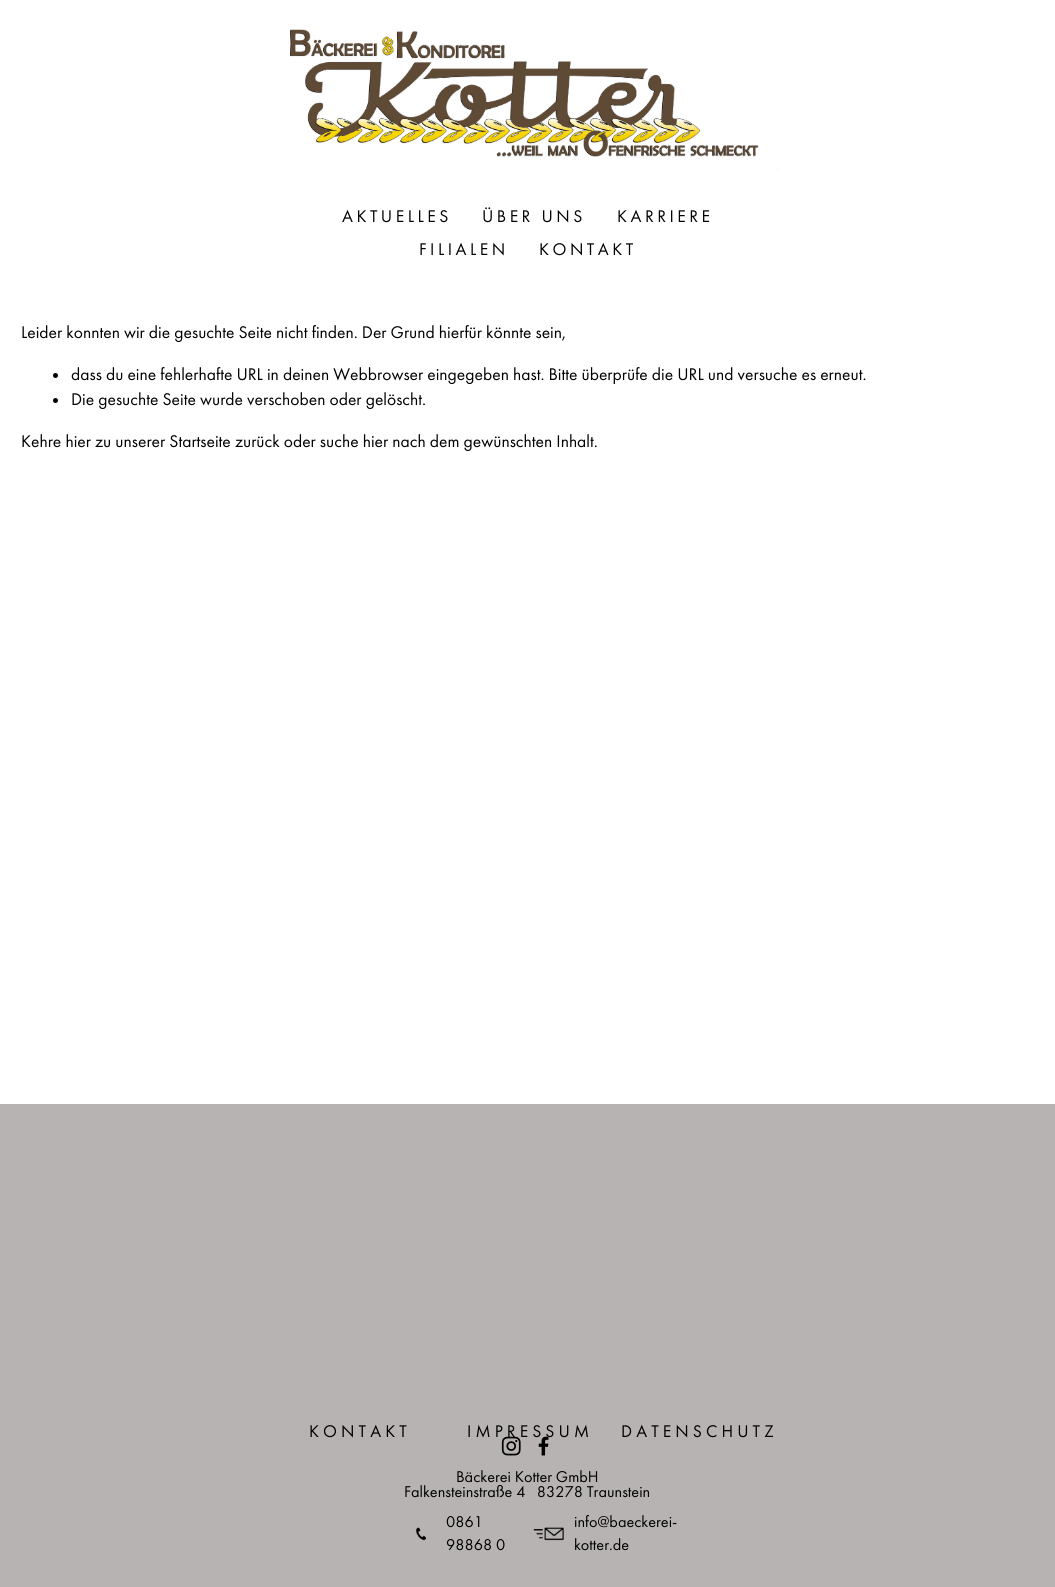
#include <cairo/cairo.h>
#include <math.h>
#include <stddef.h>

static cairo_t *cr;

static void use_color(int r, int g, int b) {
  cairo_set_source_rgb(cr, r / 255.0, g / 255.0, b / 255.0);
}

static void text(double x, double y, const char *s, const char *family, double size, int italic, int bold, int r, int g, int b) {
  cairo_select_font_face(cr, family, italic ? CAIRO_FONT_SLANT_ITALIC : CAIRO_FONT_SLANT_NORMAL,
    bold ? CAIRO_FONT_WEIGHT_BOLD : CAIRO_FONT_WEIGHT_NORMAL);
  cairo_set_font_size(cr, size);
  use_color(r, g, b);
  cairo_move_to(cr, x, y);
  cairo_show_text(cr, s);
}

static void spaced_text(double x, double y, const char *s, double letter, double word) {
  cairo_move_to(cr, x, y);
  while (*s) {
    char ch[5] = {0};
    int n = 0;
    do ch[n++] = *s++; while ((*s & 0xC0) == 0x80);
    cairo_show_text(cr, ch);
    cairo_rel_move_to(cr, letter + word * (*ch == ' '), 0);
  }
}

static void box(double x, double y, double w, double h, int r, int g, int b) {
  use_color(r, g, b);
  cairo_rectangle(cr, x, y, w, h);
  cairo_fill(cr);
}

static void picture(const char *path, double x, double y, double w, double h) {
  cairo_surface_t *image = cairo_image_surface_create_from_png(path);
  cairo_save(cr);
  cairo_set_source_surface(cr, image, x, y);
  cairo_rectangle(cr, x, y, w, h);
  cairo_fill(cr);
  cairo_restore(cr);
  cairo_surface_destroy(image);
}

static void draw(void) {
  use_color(255, 255, 255);
  cairo_paint(cr);
  picture("img_01.png", 290, 29, 488, 141);
  use_color(0, 0, 0);
  cairo_arc(cr, 55.5, 375.5, 2.5, 0, 2 * M_PI);
  cairo_fill(cr);
  cairo_arc(cr, 55.5, 400.5, 2.5, 0, 2 * M_PI);
  cairo_fill(cr);
  box(0, 1104, 1055, 483, 183, 179, 178);
  picture("img_02.png", 501, 1436, 20, 20);
  picture("img_03.png", 538, 1436, 11, 20);
  picture("img_04.png", 416, 1527, 10, 14);
  picture("img_05.png", 533, 1527, 31, 14);
  cairo_select_font_face(cr, "Futura PT", CAIRO_FONT_SLANT_NORMAL, CAIRO_FONT_WEIGHT_NORMAL);
  cairo_set_font_size(cr, 17.55);
  use_color(0, 0, 0);
  spaced_text(342, 222, "AKTUELLES", 3.5, 0);
  spaced_text(482, 222, "ÜBER UNS", 3.5, 0);
  spaced_text(617, 222, "KARRIERE", 3.5, 0);
  spaced_text(419, 255, "FILIALEN", 3.5, 0);
  spaced_text(539, 255, "KONTAKT", 3.5, 0);
  text(21, 338, "Leider konnten wir die gesuchte Seite nicht finden. Der Grund hierfür könnte sein,", "Futura PT", 17.55, 0, 0, 0, 0, 0);
  text(71, 380, "dass du eine fehlerhafte URL in deinen Webbrowser eingegeben hast. Bitte überprüfe die URL und versuche es erneut.", "Futura PT", 17.55, 0, 0, 0, 0, 0);
  text(71, 405, "Die gesuchte Seite wurde verschoben oder gelöscht.", "Futura PT", 17.55, 0, 0, 0, 0, 0);
  text(21, 447, "Kehre hier zu unserer Startseite zurück oder suche hier nach dem gewünschten Inhalt.", "Futura PT", 17.55, 0, 0, 0, 0, 0);
  text(309, 1437, "K O N T A K T", "Futura PT", 17.55, 0, 0, 0, 0, 0);
  text(467, 1437, "I M P R E S S U M", "Futura PT", 17.55, 0, 0, 0, 0, 0);
  text(621, 1437, "D A T E N S C H U T Z", "Futura PT", 17.55, 0, 0, 0, 0, 0);
  text(456, 1482, "Bäckerei Kotter GmbH", "Futura PT", 16.25, 0, 0, 0, 0, 0);
  text(404, 1497, "Falkensteinstraße 4   83278 Traunstein", "Futura PT", 16.25, 0, 0, 0, 0, 0);
  text(446, 1527, "0861", "Futura PT", 16.25, 0, 0, 0, 0, 0);
  text(446, 1550, "98868 0", "Futura PT", 16.25, 0, 0, 0, 0, 0);
  text(574, 1527, "info@baeckerei-", "Futura PT", 16.25, 0, 0, 0, 0, 0);
  text(574, 1550, "kotter.de", "Futura PT", 16.25, 0, 0, 0, 0, 0);
}

int main(void) {
  cairo_surface_t *surface = cairo_image_surface_create(CAIRO_FORMAT_RGB24, 1055, 1587);
  cr = cairo_create(surface);
  cairo_font_options_t *options = cairo_font_options_create();
  cairo_font_options_set_hint_metrics(options, CAIRO_HINT_METRICS_OFF);
  cairo_font_options_set_hint_style(options, CAIRO_HINT_STYLE_NONE);
  cairo_set_font_options(cr, options);
  cairo_set_miter_limit(cr, 4);
  draw();
  cairo_surface_write_to_png(surface, "out.png");
  cairo_font_options_destroy(options);
  cairo_destroy(cr);
  cairo_surface_destroy(surface);
  return 0;
}
